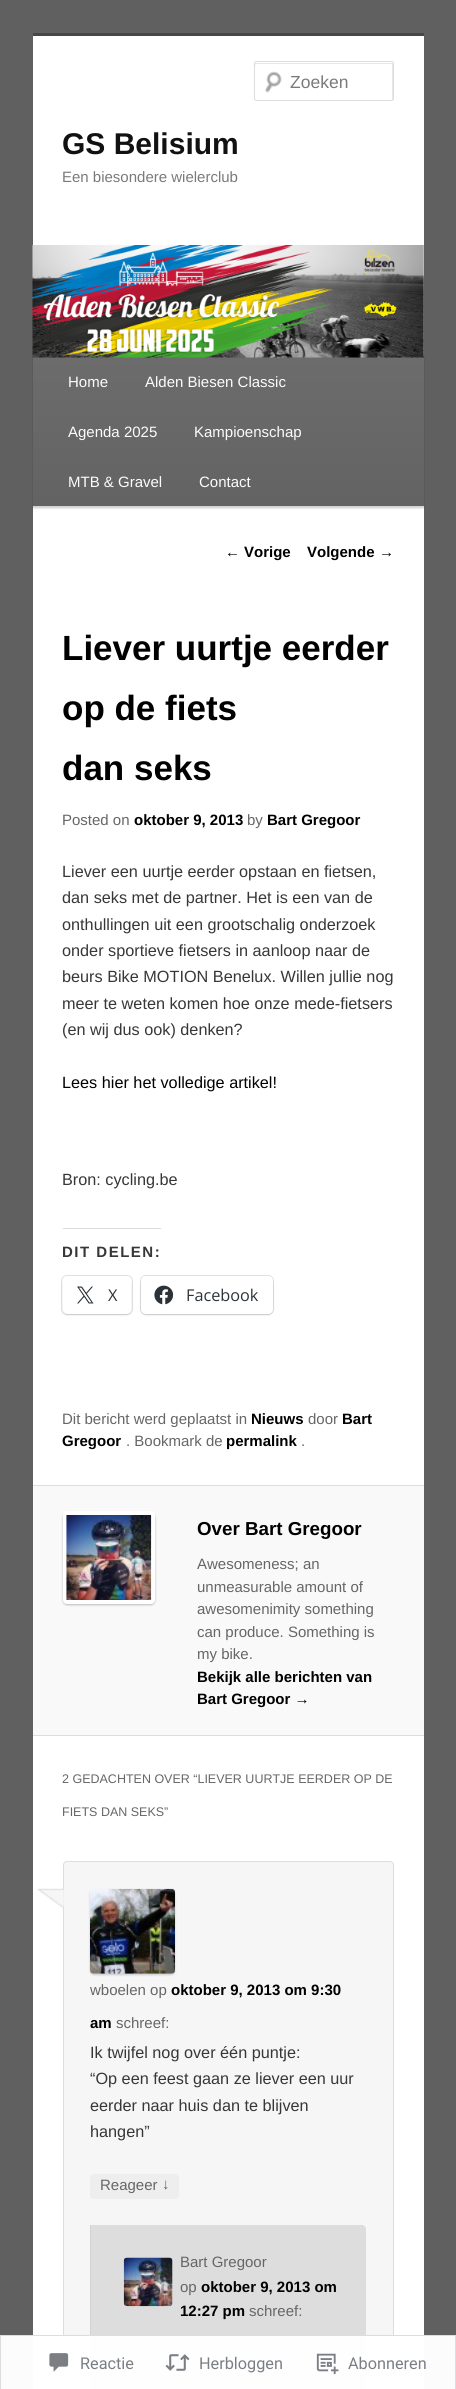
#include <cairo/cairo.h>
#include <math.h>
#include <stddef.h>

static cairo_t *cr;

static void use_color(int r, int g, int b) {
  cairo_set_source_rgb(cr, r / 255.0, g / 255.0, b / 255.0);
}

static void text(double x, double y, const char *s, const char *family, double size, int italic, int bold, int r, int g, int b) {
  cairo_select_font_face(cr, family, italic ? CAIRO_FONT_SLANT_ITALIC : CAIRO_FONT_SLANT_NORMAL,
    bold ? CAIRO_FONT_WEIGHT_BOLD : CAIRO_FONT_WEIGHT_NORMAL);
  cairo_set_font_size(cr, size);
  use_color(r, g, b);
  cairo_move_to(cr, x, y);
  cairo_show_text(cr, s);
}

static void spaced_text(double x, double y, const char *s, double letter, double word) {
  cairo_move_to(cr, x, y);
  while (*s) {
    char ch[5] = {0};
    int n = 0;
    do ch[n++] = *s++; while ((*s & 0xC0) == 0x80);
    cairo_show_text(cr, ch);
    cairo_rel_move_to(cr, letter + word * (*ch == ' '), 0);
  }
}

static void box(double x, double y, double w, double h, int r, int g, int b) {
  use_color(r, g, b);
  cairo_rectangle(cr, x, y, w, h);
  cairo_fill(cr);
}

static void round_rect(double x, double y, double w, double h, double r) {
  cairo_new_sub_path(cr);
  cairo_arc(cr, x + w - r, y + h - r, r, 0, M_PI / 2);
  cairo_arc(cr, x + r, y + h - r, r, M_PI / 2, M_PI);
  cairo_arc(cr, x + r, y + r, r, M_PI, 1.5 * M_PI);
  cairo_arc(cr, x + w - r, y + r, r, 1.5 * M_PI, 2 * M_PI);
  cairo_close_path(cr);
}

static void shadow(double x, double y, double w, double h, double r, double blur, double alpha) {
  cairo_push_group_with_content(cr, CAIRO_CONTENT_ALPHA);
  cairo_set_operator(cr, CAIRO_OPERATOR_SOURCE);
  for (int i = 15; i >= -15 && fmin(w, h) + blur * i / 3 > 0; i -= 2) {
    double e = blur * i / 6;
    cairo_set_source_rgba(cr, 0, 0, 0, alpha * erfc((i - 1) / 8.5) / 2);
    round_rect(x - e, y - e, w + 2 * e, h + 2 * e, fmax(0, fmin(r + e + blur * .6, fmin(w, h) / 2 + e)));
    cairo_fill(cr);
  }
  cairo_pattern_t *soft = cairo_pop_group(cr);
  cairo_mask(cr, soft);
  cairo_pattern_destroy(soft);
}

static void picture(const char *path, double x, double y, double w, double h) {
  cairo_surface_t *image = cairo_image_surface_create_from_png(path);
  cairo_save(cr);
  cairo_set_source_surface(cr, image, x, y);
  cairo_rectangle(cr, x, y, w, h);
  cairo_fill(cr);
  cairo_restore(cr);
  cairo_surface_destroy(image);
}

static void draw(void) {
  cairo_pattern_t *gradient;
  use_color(96, 96, 96);
  cairo_paint(cr);
  box(33, 36, 391, 2353, 255, 255, 255);
  box(33, 33, 391, 3, 71, 71, 71);
  picture("img_01.png", 265, 71, 17, 22);
  use_color(230, 230, 230);
  cairo_new_path(cr);
  cairo_move_to(cr, 256, 64);
  cairo_line_to(cr, 391, 64);
  cairo_curve_to(cr, 392, 64, 392, 64, 392, 65);
  cairo_line_to(cr, 392, 100);
  cairo_curve_to(cr, 393, 100, 393, 100, 393, 99);
  cairo_line_to(cr, 393, 64);
  cairo_curve_to(cr, 393, 63, 393, 63, 392, 63);
  cairo_line_to(cr, 256, 63);
  cairo_curve_to(cr, 255, 63, 255, 63, 255, 64);
  cairo_line_to(cr, 255, 65);
  cairo_close_path(cr);
  cairo_fill(cr);
  round_rect(254.5, 61.5, 139, 39, 2);
  use_color(221, 221, 221);
  cairo_set_line_width(cr, 1);
  cairo_stroke(cr);
  use_color(0, 0, 0);
  shadow(33, 358, 391, 150, 0, 1, 0.2);
  gradient = cairo_pattern_create_linear(228, 356, 228, 506);
  cairo_pattern_add_color_stop_rgba(gradient, 0, 0.424, 0.424, 0.424, 1);
  cairo_pattern_add_color_stop_rgba(gradient, 1, 0.388, 0.388, 0.388, 1);
  cairo_set_source(cr, gradient);
  cairo_pattern_destroy(gradient);
  cairo_rectangle(cr, 33, 356, 391, 150);
  cairo_fill(cr);
  picture("img_02.png", 32, 245, 392, 113);
  box(63, 1228, 98, 1, 220, 220, 222);
  round_rect(61.5, 1275.5, 71, 39, 5.5);
  use_color(224, 224, 224);
  cairo_stroke(cr);
  use_color(0, 0, 0);
  shadow(63, 1278, 68, 37, 5, 1, 0.12);
  use_color(255, 255, 255);
  round_rect(63, 1276, 68, 38, 5);
  cairo_fill(cr);
  picture("img_03.png", 77, 1286, 17, 18);
  round_rect(140.5, 1275.5, 133, 39, 5.5);
  use_color(224, 224, 224);
  cairo_stroke(cr);
  use_color(0, 0, 0);
  shadow(141, 1278, 132, 37, 5, 1, 0.12);
  use_color(255, 255, 255);
  round_rect(141, 1276, 132, 38, 5);
  cairo_fill(cr);
  picture("img_04.png", 154, 1285, 20, 20);
  box(33, 1486, 391, 249, 249, 249, 249);
  box(33, 1485, 391, 1, 221, 221, 221);
  box(33, 1735, 391, 1, 221, 221, 221);
  use_color(187, 187, 187);
  shadow(63, 1513, 92, 92, 4, 1, 1);
  use_color(255, 255, 255);
  round_rect(63, 1511, 92, 93, 4);
  cairo_fill(cr);
  picture("img_05.png", 66, 1515, 86, 85);
  use_color(246, 246, 246);
  round_rect(63.5, 1861.5, 330, 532, 3.5);
  cairo_fill_preserve(cr);
  use_color(221, 221, 221);
  cairo_stroke(cr);
  picture("img_06.png", 37, 1888, 27, 21);
  use_color(204, 204, 204);
  shadow(90, 1890, 85, 85, 4, 1, 1);
  picture("img_07.png", 90, 1888, 85, 86);
  use_color(238, 238, 238);
  round_rect(90, 2174, 89, 25, 4);
  cairo_fill(cr);
  use_color(221, 221, 221);
  cairo_new_path(cr);
  cairo_move_to(cr, 90, 2225);
  cairo_line_to(cr, 362, 2225);
  cairo_curve_to(cr, 364, 2225, 366, 2227, 366, 2229);
  cairo_line_to(cr, 366, 2389);
  cairo_curve_to(cr, 366, 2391, 364, 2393, 362, 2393);
  cairo_line_to(cr, 90, 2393);
  cairo_close_path(cr);
  cairo_fill(cr);
  box(90, 2225, 1, 164, 211, 211, 211);
  picture("img_08.png", 123, 2257, 50, 50);
  cairo_set_source_rgba(cr, 1, 1, 1, 0.98);
  cairo_rectangle(cr, 0, 2335, 456, 54);
  cairo_fill(cr);
  cairo_rectangle(cr, 0.5, 2335.5, 455, 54);
  cairo_set_source_rgba(cr, 0.863, 0.863, 0.871, 0.98);
  cairo_stroke(cr);
  picture("img_09.png", 49, 2353, 20, 19);
  picture("img_10.png", 165, 2354, 25, 17);
  picture("img_11.png", 316, 2353, 23, 22);
  text(290, 88, "Zoeken", "Liberation Sans", 17.5, 0, 0, 122, 122, 122);
  text(62, 154, "GS Belisium", "Liberation Sans", 30, 0, 1, 17, 17, 17);
  text(62, 182, "Een biesondere wielerclub", "Liberation Sans", 15, 0, 0, 122, 122, 122);
  text(68, 387, "Home", "Liberation Sans", 15, 0, 0, 252, 252, 252);
  text(145, 387, "Alden Biesen Classic", "Liberation Sans", 15, 0, 0, 252, 252, 252);
  text(68, 437, "Agenda 2025", "Liberation Sans", 15, 0, 0, 252, 252, 252);
  text(194, 437, "Kampioenschap", "Liberation Sans", 15, 0, 0, 252, 252, 252);
  text(68, 487, "MTB & Gravel", "Liberation Sans", 15, 0, 0, 252, 252, 252);
  text(199, 487, "Contact", "Liberation Sans", 15, 0, 0, 252, 252, 252);
  text(225, 557, "←", "Liberation Sans", 15, 0, 0, 0, 0, 0);
  text(244, 557, "Vorige", "Liberation Sans", 15, 0, 1, 0, 0, 0);
  text(307, 557, "Volgende", "Liberation Sans", 15, 0, 1, 0, 0, 0);
  text(379, 557, "→", "Liberation Sans", 15, 0, 0, 0, 0, 0);
  text(62, 660, "Liever uurtje eerder", "Liberation Sans", 35, 0, 1, 0, 0, 0);
  text(62, 720, "op de fiets", "Liberation Sans", 35, 0, 1, 0, 0, 0);
  text(62, 780, "dan seks", "Liberation Sans", 35, 0, 1, 0, 0, 0);
  text(62, 825, "Posted on", "Liberation Sans", 15, 0, 0, 102, 102, 102);
  text(134, 825, "oktober 9, 2013", "Liberation Sans", 15, 0, 1, 0, 0, 0);
  text(247, 825, "by", "Liberation Sans", 15, 0, 0, 102, 102, 102);
  text(267, 825, "Bart Gregoor", "Liberation Sans", 15, 0, 1, 0, 0, 0);
  text(62, 877, "Liever een uurtje eerder opstaan en fietsen,", "Liberation Sans", 16.25, 0, 0, 55, 55, 55);
  text(62, 903, "dan seks met de partner. Het is een van de", "Liberation Sans", 16.25, 0, 0, 55, 55, 55);
  text(62, 930, "onthullingen uit een grootschalig onderzoek", "Liberation Sans", 16.25, 0, 0, 55, 55, 55);
  text(62, 956, "onder sportieve fietsers in aanloop naar de", "Liberation Sans", 16.25, 0, 0, 55, 55, 55);
  text(62, 982, "beurs Bike MOTION Benelux. Willen jullie nog", "Liberation Sans", 16.25, 0, 0, 55, 55, 55);
  text(62, 1009, "meer te weten komen hoe onze mede-fietsers", "Liberation Sans", 16.25, 0, 0, 55, 55, 55);
  text(62, 1035, "(en wij dus ook) denken?", "Liberation Sans", 16.25, 0, 0, 55, 55, 55);
  text(62, 1088, "Lees hier het volledige artikel!", "Liberation Sans", 16.25, 0, 0, 0, 0, 0);
  text(62, 1185, "Bron: cycling.be", "Liberation Sans", 16.25, 0, 0, 55, 55, 55);
  cairo_select_font_face(cr, "Liberation Sans", CAIRO_FONT_SLANT_NORMAL, CAIRO_FONT_WEIGHT_BOLD);
  cairo_set_font_size(cr, 15);
  spaced_text(62, 1257, "DIT DELEN:", 1.5, 0);
  text(108, 1301, "X", "Open Sans", 16.25, 0, 0, 44, 51, 56);
  text(186, 1301, "Facebook", "Open Sans", 16.25, 0, 0, 44, 51, 56);
  text(62, 1424, "Dit bericht werd geplaatst in", "Liberation Sans", 15, 0, 0, 102, 102, 102);
  text(251, 1424, "Nieuws", "Liberation Sans", 15, 0, 1, 0, 0, 0);
  text(308, 1424, "door", "Liberation Sans", 15, 0, 0, 102, 102, 102);
  text(342, 1424, "Bart", "Liberation Sans", 15, 0, 1, 0, 0, 0);
  text(62, 1446, "Gregoor", "Liberation Sans", 15, 0, 1, 0, 0, 0);
  text(126, 1446, ". Bookmark de", "Liberation Sans", 15, 0, 0, 102, 102, 102);
  text(226, 1446, "permalink", "Liberation Sans", 15, 0, 1, 0, 0, 0);
  text(301, 1446, ".", "Liberation Sans", 15, 0, 0, 102, 102, 102);
  text(197, 1535, "Over Bart Gregoor", "Liberation Sans", 18.75, 0, 1, 0, 0, 0);
  text(197, 1569, "Awesomeness; an", "Liberation Sans", 15, 0, 0, 102, 102, 102);
  text(197, 1592, "unmeasurable amount of", "Liberation Sans", 15, 0, 0, 102, 102, 102);
  text(197, 1614, "awesomenimity something", "Liberation Sans", 15, 0, 0, 102, 102, 102);
  text(197, 1637, "can produce. Something is", "Liberation Sans", 15, 0, 0, 102, 102, 102);
  text(197, 1659, "my bike.", "Liberation Sans", 15, 0, 0, 102, 102, 102);
  text(197, 1682, "Bekijk alle berichten van", "Liberation Sans", 15, 0, 1, 0, 0, 0);
  text(197, 1704, "Bart Gregoor →", "Liberation Sans", 15, 0, 1, 0, 0, 0);
  text(62, 1783, "2 GEDACHTEN OVER “LIEVER UURTJE EERDER OP DE", "Liberation Sans", 12.5, 0, 0, 102, 102, 102);
  text(62, 1816, "FIETS DAN SEKS”", "Liberation Sans", 12.5, 0, 0, 102, 102, 102);
  text(90, 1995, "wboelen op", "Liberation Sans", 15, 0, 0, 102, 102, 102);
  text(171, 1995, "oktober 9, 2013 om 9:30", "Liberation Sans", 15, 0, 1, 0, 0, 0);
  text(90, 2028, "am", "Liberation Sans", 15, 0, 1, 0, 0, 0);
  text(116, 2028, "schreef:", "Liberation Sans", 15, 0, 0, 102, 102, 102);
  text(90, 2058, "Ik twijfel nog over één puntje:", "Liberation Sans", 16.25, 0, 0, 55, 55, 55);
  text(90, 2084, "“Op een feest gaan ze liever een uur", "Liberation Sans", 16.25, 0, 0, 55, 55, 55);
  text(90, 2111, "eerder naar huis dan te blijven", "Liberation Sans", 16.25, 0, 0, 55, 55, 55);
  text(90, 2137, "hangen”", "Liberation Sans", 16.25, 0, 0, 55, 55, 55);
  text(100, 2190, "Reageer", "Liberation Sans", 15, 0, 0, 102, 102, 102);
  text(162, 2189, "↓", "Liberation Sans", 15, 0, 0, 102, 102, 102);
  text(180, 2267, "Bart Gregoor", "Liberation Sans", 15, 0, 0, 102, 102, 102);
  text(180, 2292, "op", "Liberation Sans", 15, 0, 0, 102, 102, 102);
  text(201, 2292, "oktober 9, 2013 om", "Liberation Sans", 15, 0, 1, 0, 0, 0);
  text(180, 2316, "12:27 pm", "Liberation Sans", 15, 0, 1, 0, 0, 0);
  text(249, 2316, "schreef:", "Liberation Sans", 15, 0, 0, 102, 102, 102);
  text(80, 2369, "Reactie", "Roboto", 16.25, 0, 0, 123, 127, 132);
  text(199, 2369, "Herbloggen", "Roboto", 16.25, 0, 0, 123, 127, 132);
  text(348, 2369, "Abonneren", "Roboto", 16.25, 0, 0, 123, 127, 132);
}

int main(void) {
  cairo_surface_t *surface = cairo_image_surface_create(CAIRO_FORMAT_RGB24, 456, 2389);
  cr = cairo_create(surface);
  cairo_font_options_t *options = cairo_font_options_create();
  cairo_font_options_set_hint_metrics(options, CAIRO_HINT_METRICS_OFF);
  cairo_font_options_set_hint_style(options, CAIRO_HINT_STYLE_NONE);
  cairo_set_font_options(cr, options);
  cairo_set_miter_limit(cr, 4);
  draw();
  cairo_surface_write_to_png(surface, "out.png");
  cairo_font_options_destroy(options);
  cairo_destroy(cr);
  cairo_surface_destroy(surface);
  return 0;
}
